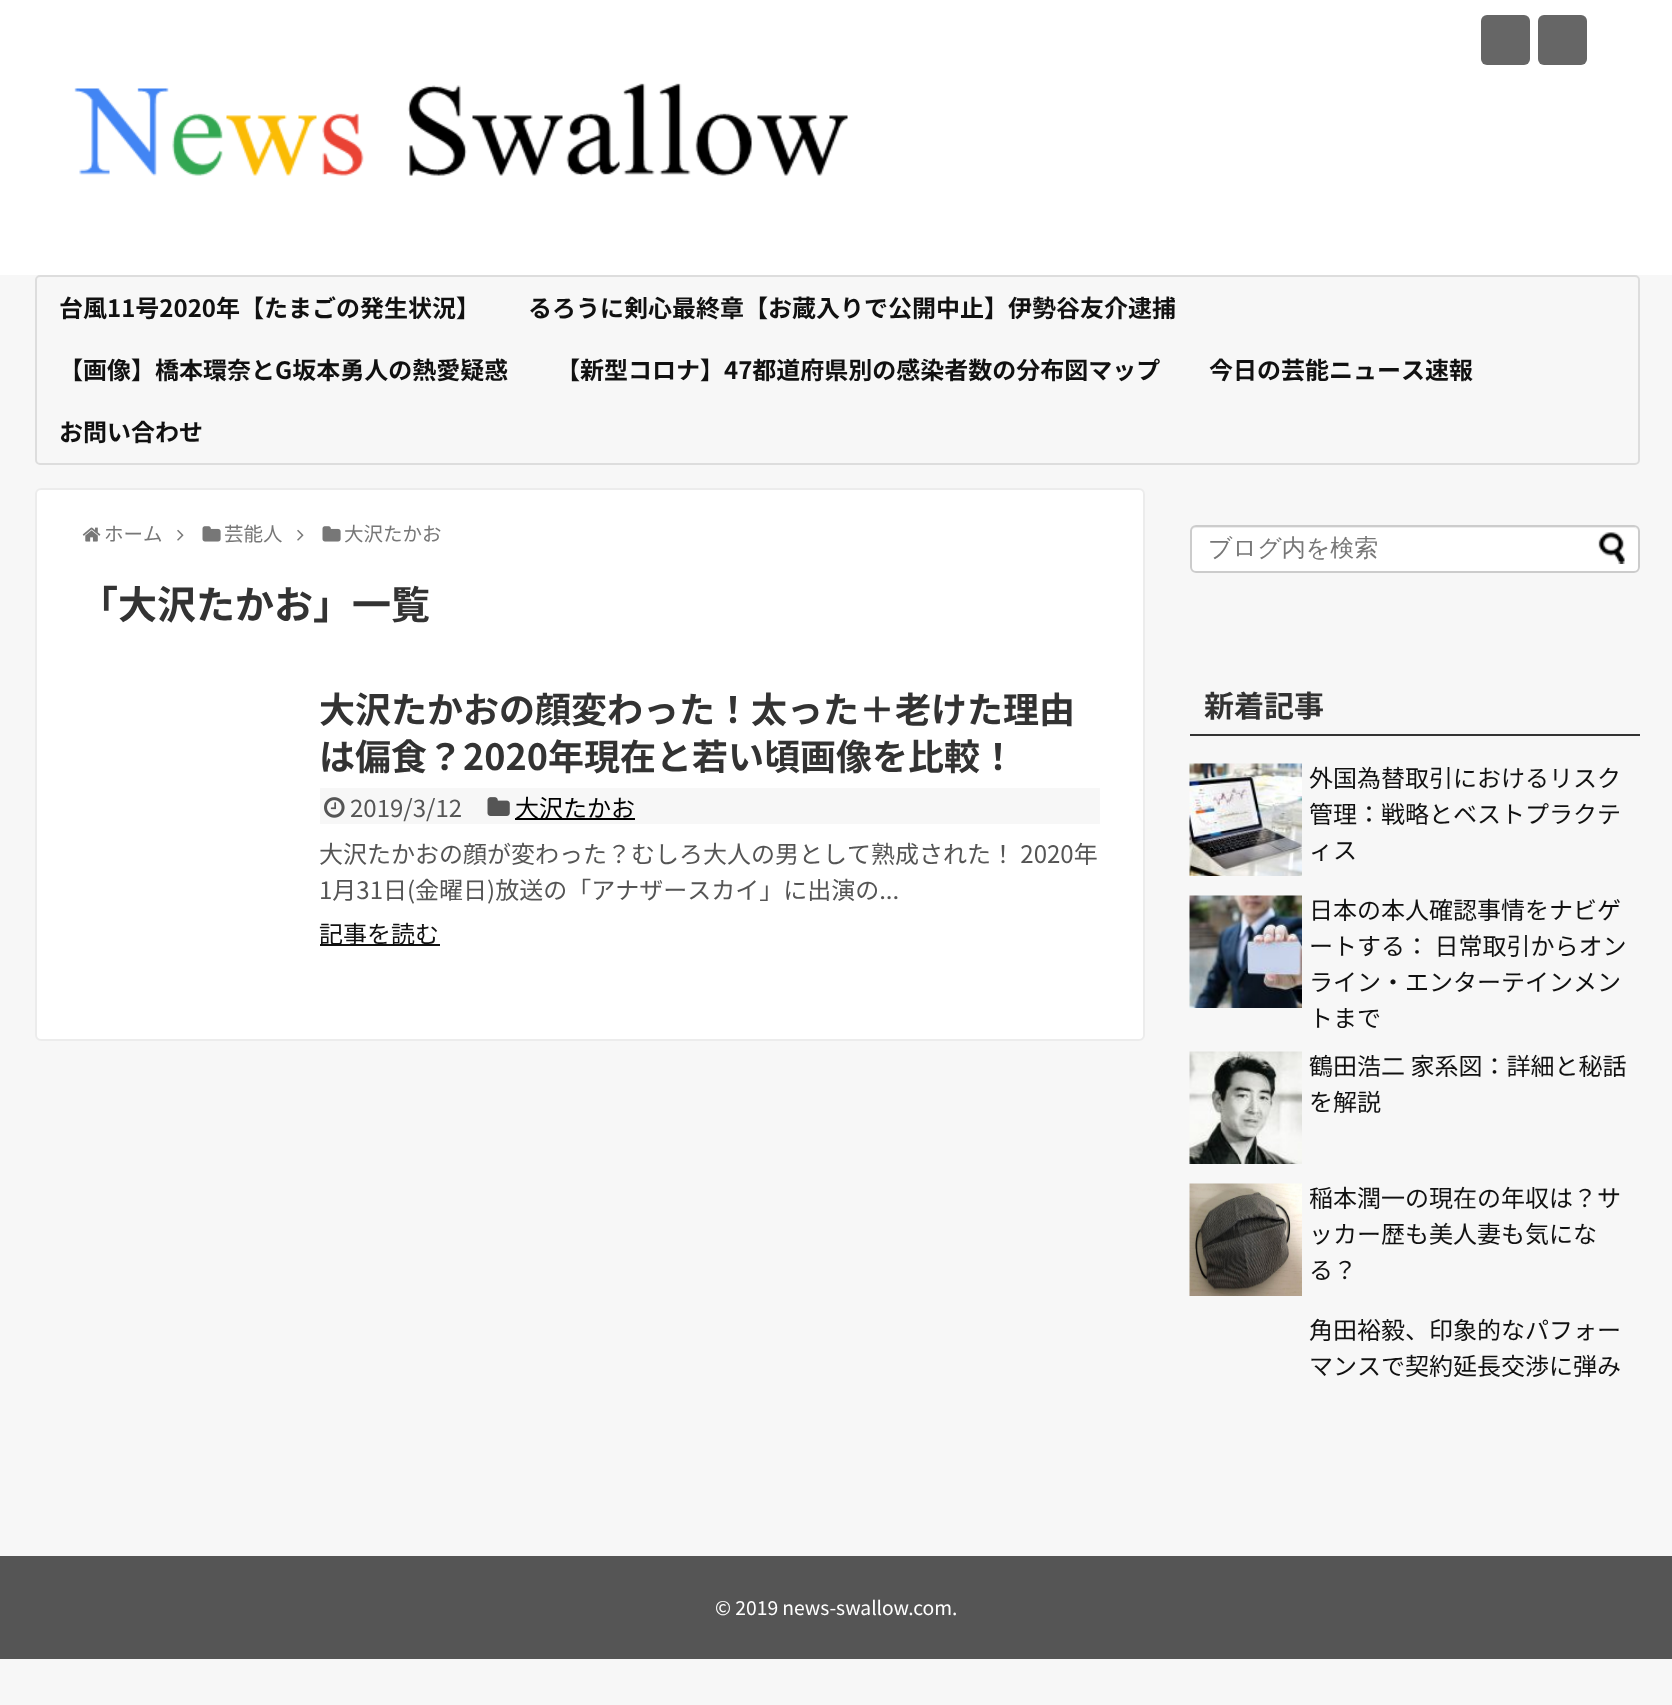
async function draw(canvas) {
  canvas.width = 1672;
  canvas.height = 1705;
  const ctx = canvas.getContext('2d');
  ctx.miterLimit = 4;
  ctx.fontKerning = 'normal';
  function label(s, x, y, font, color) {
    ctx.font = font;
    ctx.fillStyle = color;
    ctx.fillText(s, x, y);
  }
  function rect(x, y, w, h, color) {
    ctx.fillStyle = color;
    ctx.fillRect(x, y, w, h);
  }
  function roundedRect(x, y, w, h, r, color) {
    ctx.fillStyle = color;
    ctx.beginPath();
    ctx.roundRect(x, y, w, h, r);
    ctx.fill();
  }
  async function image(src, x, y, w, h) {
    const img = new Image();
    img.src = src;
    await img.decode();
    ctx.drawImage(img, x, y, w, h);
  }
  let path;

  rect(0, 0, 1672, 1705, '#f7f7f7');
  rect(0, 0, 1672, 275, '#fff');
  roundedRect(1481, 15, 49, 50, 6, '#666');
  roundedRect(1538, 15, 49, 50, 6, '#666');
  await image('assets/img1.png', 74, 83, 774, 93);
  ctx.beginPath();
  ctx.roundRect(36, 276, 1603, 188, 4);
  ctx.strokeStyle = '#ddd';
  ctx.lineWidth = 2;
  ctx.stroke();
  label('台風11号2020年【たまごの発生状況】', 59, 317, 'bold 24px Noto Sans JP', '#111');
  label('るろうに剣心最終章【お蔵入りで公開中止】伊勢谷友介逮捕', 528, 317, 'bold 24px Noto Sans JP', '#111');
  label('【画像】橋本環奈とG坂本勇人の熱愛疑惑', 59, 379, 'bold 24px Noto Sans JP', '#111');
  label('【新型コロナ】47都道府県別の感染者数の分布図マップ', 556, 379, 'bold 24px Noto Sans JP', '#111');
  label('今日の芸能ニュース速報', 1209, 379, 'bold 24px Noto Sans JP', '#111');
  label('お問い合わせ', 59, 441, 'bold 24px Noto Sans JP', '#111');
  ctx.fillStyle = '#fff';
  ctx.beginPath();
  ctx.roundRect(36, 489, 1108, 551, 5);
  ctx.fill();
  ctx.strokeStyle = '#ececec';
  ctx.stroke();
  await image('assets/img2.png', 82, 527, 19, 15);
  label('ホーム', 104, 541, '19.5px Noto Sans JP', '#777');
  await image('assets/img3.png', 177, 529, 7, 12);
  await image('assets/img4.png', 202, 526, 19, 16);
  label('芸能人', 224, 541, '19.5px Noto Sans JP', '#777');
  await image('assets/img3.png', 297, 529, 7, 12);
  await image('assets/img4.png', 322, 526, 19, 16);
  label('大沢たかお', 344, 541, '19.5px Noto Sans JP', '#777');
  label('「大沢たかお」一覧', 79, 619, 'bold 39px Noto Sans JP', '#333');
  label('大沢たかおの顔変わった！太った＋老けた理由', 319, 723, 'bold 36px Noto Sans JP', '#333');
  label('は偏食？2020年現在と若い頃画像を比較！', 319, 770, 'bold 36px Noto Sans JP', '#333');
  rect(320, 788, 780, 36, '#f7f7f7');
  await image('assets/img5.png', 324, 797, 21, 21);
  label('2019/3/12', 350, 817, '24px Noto Sans JP', '#555');
  await image('assets/img6.png', 487, 797, 23, 19);
  rect(515, 818, 120, 2, '#000');
  label('大沢たかお', 515, 817, '24px Noto Sans JP', '#000');
  label('大沢たかおの顔が変わった？むしろ大人の男として熟成された！ 2020年', 319, 863, '24px Noto Sans JP', '#555');
  label('1月31日(金曜日)放送の「アナザースカイ」に出演の...', 319, 899, '24px Noto Sans JP', '#555');
  rect(320, 944, 120, 2, '#111');
  label('記事を読む', 319, 943, '24px Noto Sans JP', '#111');
  roundedRect(1190, 525, 450, 48, 6, '#fff');
  ctx.fillStyle = '#ececec';
  path = new Path2D('M1196 528H1634C1636 528 1638 530 1638 532C1638 529 1636 527 1633 527H1196C1193 527 1191 529 1191 532C1191 530 1193 528 1196 528Z');
  ctx.fill(path);
  ctx.beginPath();
  ctx.roundRect(1191, 526, 448, 46, 5);
  ctx.strokeStyle = '#ccc';
  ctx.stroke();
  label('ブログ内を検索', 1208, 556, '500 24px WenQuanYi Zen Hei', '#777');
  await image('assets/img7.png', 1598, 532, 27, 32);
  rect(1190, 734, 450, 2, '#333');
  label('新着記事', 1204, 717, 'bold 30px Noto Sans JP', '#333');
  await image('assets/img8.png', 1189, 763, 113, 113);
  label('外国為替取引におけるリスク', 1309, 787, '24px Noto Sans JP', '#111');
  label('管理：戦略とベストプラクテ', 1309, 823, '24px Noto Sans JP', '#111');
  label('ィス', 1309, 859, '24px Noto Sans JP', '#111');
  await image('assets/img9.png', 1189, 895, 113, 113);
  label('日本の本人確認事情をナビゲ', 1309, 919, '24px Noto Sans JP', '#111');
  label('ートする： 日常取引からオン', 1309, 955, '24px Noto Sans JP', '#111');
  label('ライン・エンターテインメン', 1309, 991, '24px Noto Sans JP', '#111');
  label('トまで', 1309, 1027, '24px Noto Sans JP', '#111');
  await image('assets/img10.png', 1189, 1051, 113, 113);
  label('鶴田浩二 家系図：詳細と秘話', 1309, 1075, '24px Noto Sans JP', '#111');
  label('を解説', 1309, 1111, '24px Noto Sans JP', '#111');
  await image('assets/img11.png', 1189, 1183, 113, 113);
  label('稲本潤一の現在の年収は？サ', 1309, 1207, '24px Noto Sans JP', '#111');
  label('ッカー歴も美人妻も気にな', 1309, 1243, '24px Noto Sans JP', '#111');
  label('る？', 1309, 1279, '24px Noto Sans JP', '#111');
  label('角田裕毅、印象的なパフォー', 1309, 1339, '24px Noto Sans JP', '#111');
  label('マンスで契約延長交渉に弾み', 1309, 1375, '24px Noto Sans JP', '#111');
  rect(0, 1556, 1672, 103, '#555');
  label('© 2019 news-swallow.com.', 715, 1615, '19.25px Noto Sans JP', '#fff');
}

draw(document.querySelector('canvas'));
